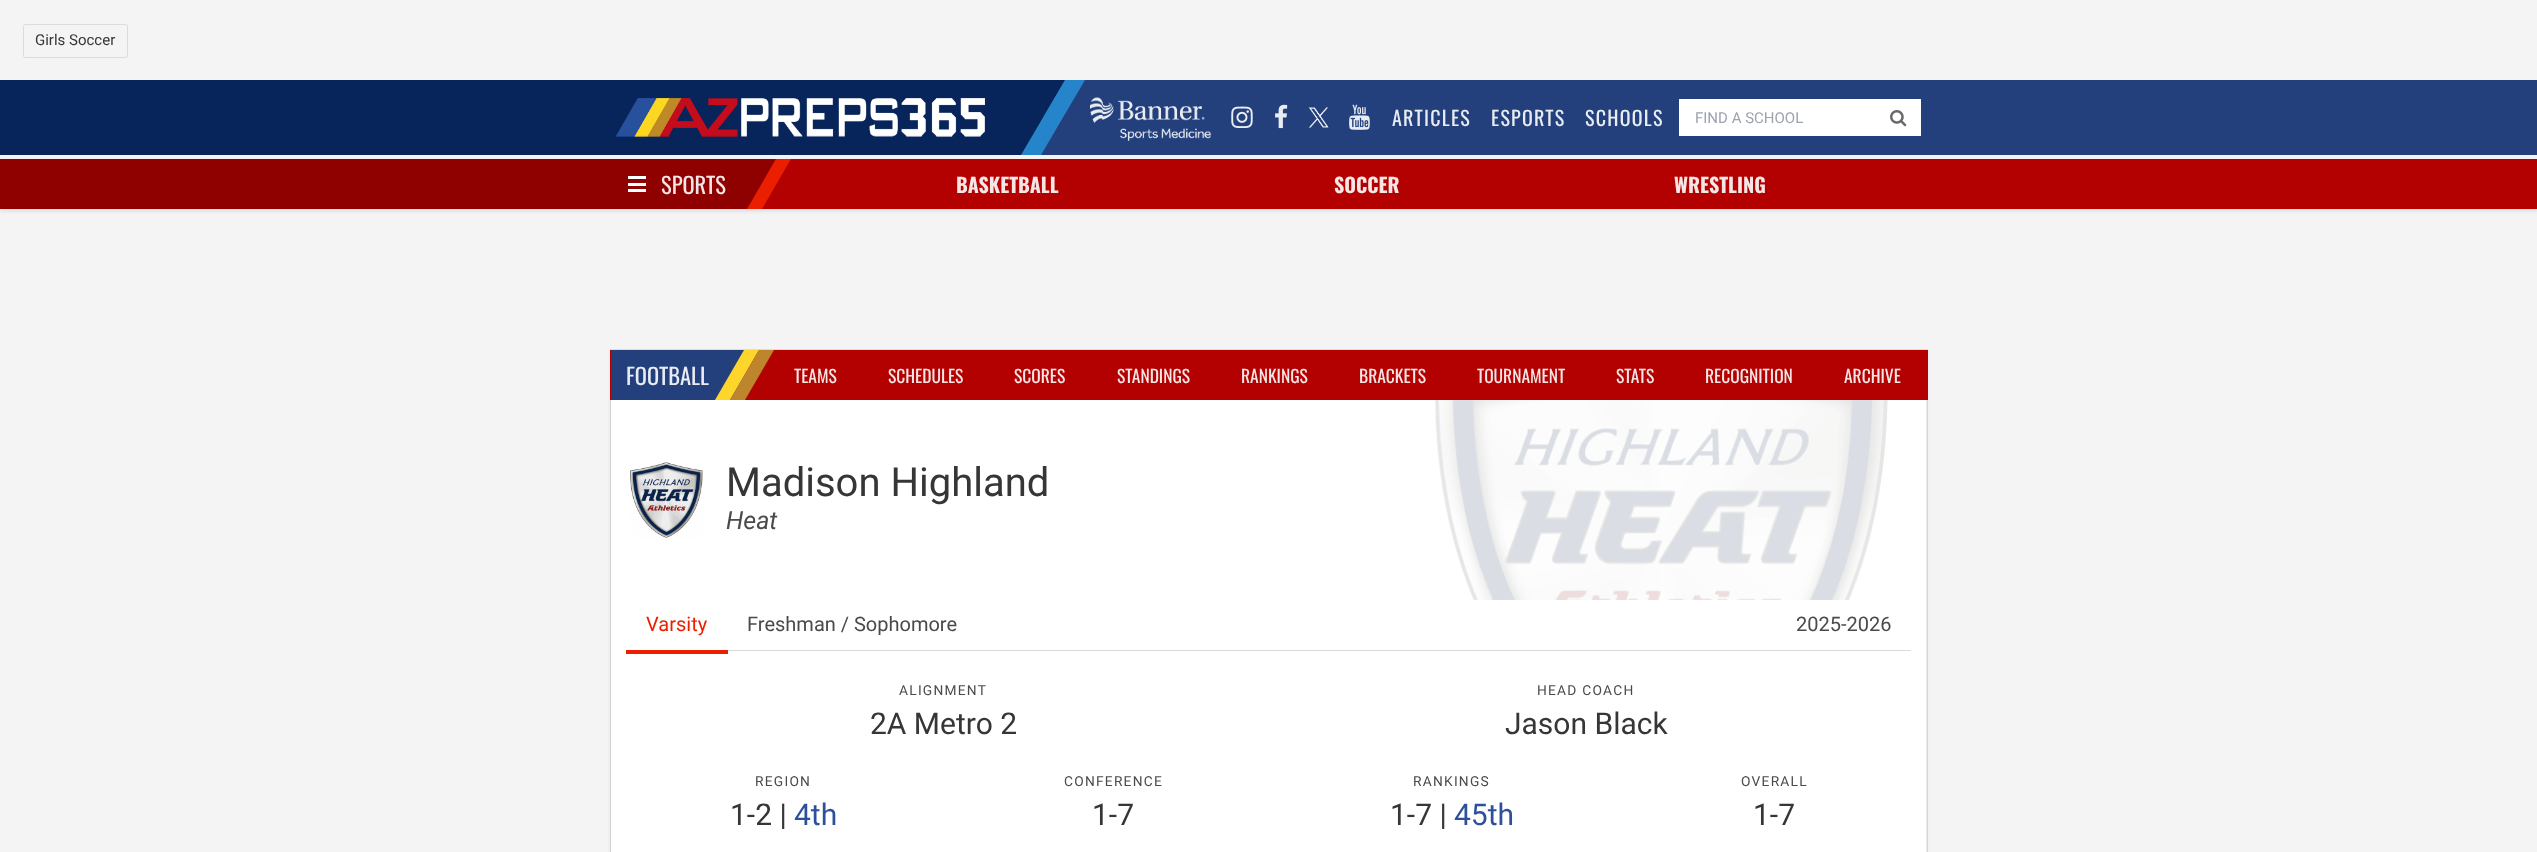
async function draw(canvas) {
  canvas.width = 2537;
  canvas.height = 852;
  const ctx = canvas.getContext('2d');
  ctx.miterLimit = 4;
  ctx.fontKerning = 'normal';
  function label(s, x, y, font, color) {
    ctx.font = font;
    ctx.fillStyle = color;
    ctx.fillText(s, x, y);
  }
  function rect(x, y, w, h, color) {
    ctx.fillStyle = color;
    ctx.fillRect(x, y, w, h);
  }
  async function image(src, x, y, w, h) {
    const img = new Image();
    img.src = src;
    await img.decode();
    ctx.drawImage(img, x, y, w, h);
  }
  let path;

  rect(0, 0, 2537, 852, '#f4f4f4');
  ctx.beginPath();
  ctx.roundRect(23.5, 24.5, 104, 33, 2);
  ctx.strokeStyle = '#dbdbdb';
  ctx.stroke();
  label('Girls Soccer', 35, 45, '15px Roboto', '#363636');
  ctx.fillStyle = '#0a0a0a1a';
  ctx.filter = 'blur(2px)';
  ctx.beginPath();
  ctx.rect(0, 161, 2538, 50);
  ctx.fill();
  ctx.filter = 'none';
  rect(1041, 80, 1496, 75, '#23407c');
  rect(0, 80, 1041, 75, '#07245b');
  await image('assets/img1.png', 615, 98, 370, 39);
  path = new Path2D('M1040 80H1065L1021 155H996Z');
  ctx.fill(path);
  ctx.fillStyle = '#2684cb';
  path = new Path2D('M1065 80H1085L1041 155H1021Z');
  ctx.fill(path);
  await image('assets/img2.png', 1090, 97, 122, 44);
  await image('assets/img3.png', 1231, 106, 22, 22);
  await image('assets/img4.png', 1275, 104, 13, 25);
  await image('assets/img5.png', 1308, 107, 21, 21);
  await image('assets/img6.png', 1349, 104, 21, 26);
  ctx.letterSpacing = '1.25px';
  label('ARTICLES', 1392, 126, '20px Oswald', '#e9ecf2');
  label('ESPORTS', 1491, 126, '20px Oswald', '#e9ecf2');
  label('SCHOOLS', 1585, 126, '20px Oswald', '#e9ecf2');
  rect(1679, 99, 242, 37, '#fff');
  ctx.letterSpacing = '0px';
  label('FIND A SCHOOL', 1695, 123, '15px Roboto', '#9ca3af');
  await image('assets/img7.png', 1890, 110, 17, 17);
  rect(761, 159, 1776, 50, '#b30000');
  rect(0, 159, 761, 50, '#8f0000');
  rect(628, 176, 18, 3, '#fff');
  rect(628, 183, 18, 3, '#fff');
  rect(628, 189, 18, 3, '#fff');
  label('SPORTS', 661, 194, '22.5px Oswald', '#f7e6e6');
  ctx.fillStyle = '#8f0000';
  path = new Path2D('M761 159H776L747 209H732Z');
  ctx.fill(path);
  ctx.fillStyle = '#eb1e00';
  path = new Path2D('M776 159H791L762 209H747Z');
  ctx.fill(path);
  label('BASKETBALL', 956, 193, 'bold 20px Oswald', '#f7e6e6');
  label('SOCCER', 1334, 193, 'bold 20px Oswald', '#f7e6e6');
  label('WRESTLING', 1674, 193, 'bold 20px Oswald', '#f7e6e6');
  ctx.strokeStyle = '#ddd';
  ctx.strokeRect(610.5, 349.5, 1317, 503);
  ctx.fillStyle = '#0a0a0a1a';
  ctx.filter = 'blur(2px)';
  ctx.beginPath();
  ctx.rect(611, 353, 1315, 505);
  ctx.fill();
  ctx.filter = 'none';
  rect(611, 400, 1315, 452, '#fff');
  rect(610, 350, 1318, 50, '#b30000');
  rect(611, 350, 133, 50, '#23407c');
  label('FOOTBALL', 626, 385, '22.5px Oswald', '#e9ecf2');
  ctx.fillStyle = '#fdd52b';
  path = new Path2D('M744 350H759L730 400H715Z');
  ctx.fill(path);
  ctx.fillStyle = '#be862c';
  path = new Path2D('M759 350H774L745 400H730Z');
  ctx.fill(path);
  label('TEAMS', 794, 383, '17.5px Oswald', '#f7e6e6');
  label('SCHEDULES', 888, 383, '17.5px Oswald', '#f7e6e6');
  label('SCORES', 1014, 383, '17.5px Oswald', '#f7e6e6');
  label('STANDINGS', 1117, 383, '17.5px Oswald', '#f7e6e6');
  label('RANKINGS', 1241, 383, '17.5px Oswald', '#f7e6e6');
  label('BRACKETS', 1359, 383, '17.5px Oswald', '#f7e6e6');
  label('TOURNAMENT', 1477, 383, '17.5px Oswald', '#f7e6e6');
  label('STATS', 1616, 383, '17.5px Oswald', '#f7e6e6');
  label('RECOGNITION', 1705, 383, '17.5px Oswald', '#f7e6e6');
  label('ARCHIVE', 1844, 383, '17.5px Oswald', '#f7e6e6');
  await image('assets/img8.png', 630, 462, 73, 76);
  label('Madison Highland', 726, 496, '40px Roboto', '#363636');
  label('Heat', 726, 529, 'italic 25px Roboto', '#4a4a4a');
  await image('assets/img9.png', 1435, 400, 453, 200);
  rect(728, 650, 1183, 1, '#dadada');
  rect(626, 650, 102, 4, '#eb1e00');
  label('Varsity', 646, 631, '20px Roboto', '#eb1e00');
  label('Freshman / Sophomore', 747, 631, '20px Roboto', '#4a4a4a');
  label('2025-2026', 1796, 631, '20px Roboto', '#4a4a4a');
  ctx.letterSpacing = '1.25px';
  label('ALIGNMENT', 899, 695, '13.75px Roboto', '#4a4a4a');
  ctx.letterSpacing = '0px';
  label('2A Metro 2', 870, 734, '30px Roboto', '#363636');
  ctx.letterSpacing = '1.25px';
  label('HEAD COACH', 1537, 695, '13.75px Roboto', '#4a4a4a');
  ctx.letterSpacing = '0px';
  label('Jason Black', 1505, 734, '30px Roboto', '#363636');
  ctx.letterSpacing = '1.25px';
  label('REGION', 755, 786, '13.75px Roboto', '#4a4a4a');
  ctx.letterSpacing = '0px';
  label('1-2 |', 730, 825, '30px Roboto', '#363636');
  label('4th', 794, 825, '30px Roboto', '#2e509b');
  ctx.letterSpacing = '1.25px';
  label('CONFERENCE', 1064, 786, '13.75px Roboto', '#4a4a4a');
  ctx.letterSpacing = '0px';
  label('1-7', 1092, 825, '30px Roboto', '#363636');
  ctx.letterSpacing = '1.25px';
  label('RANKINGS', 1413, 786, '13.75px Roboto', '#4a4a4a');
  ctx.letterSpacing = '0px';
  label('1-7 |', 1390, 825, '30px Roboto', '#363636');
  label('45th', 1454, 825, '30px Roboto', '#2e509b');
  ctx.letterSpacing = '1.25px';
  label('OVERALL', 1741, 786, '13.75px Roboto', '#4a4a4a');
  ctx.letterSpacing = '0px';
  label('1-7', 1753, 825, '30px Roboto', '#363636');
}

draw(document.querySelector('canvas'));
